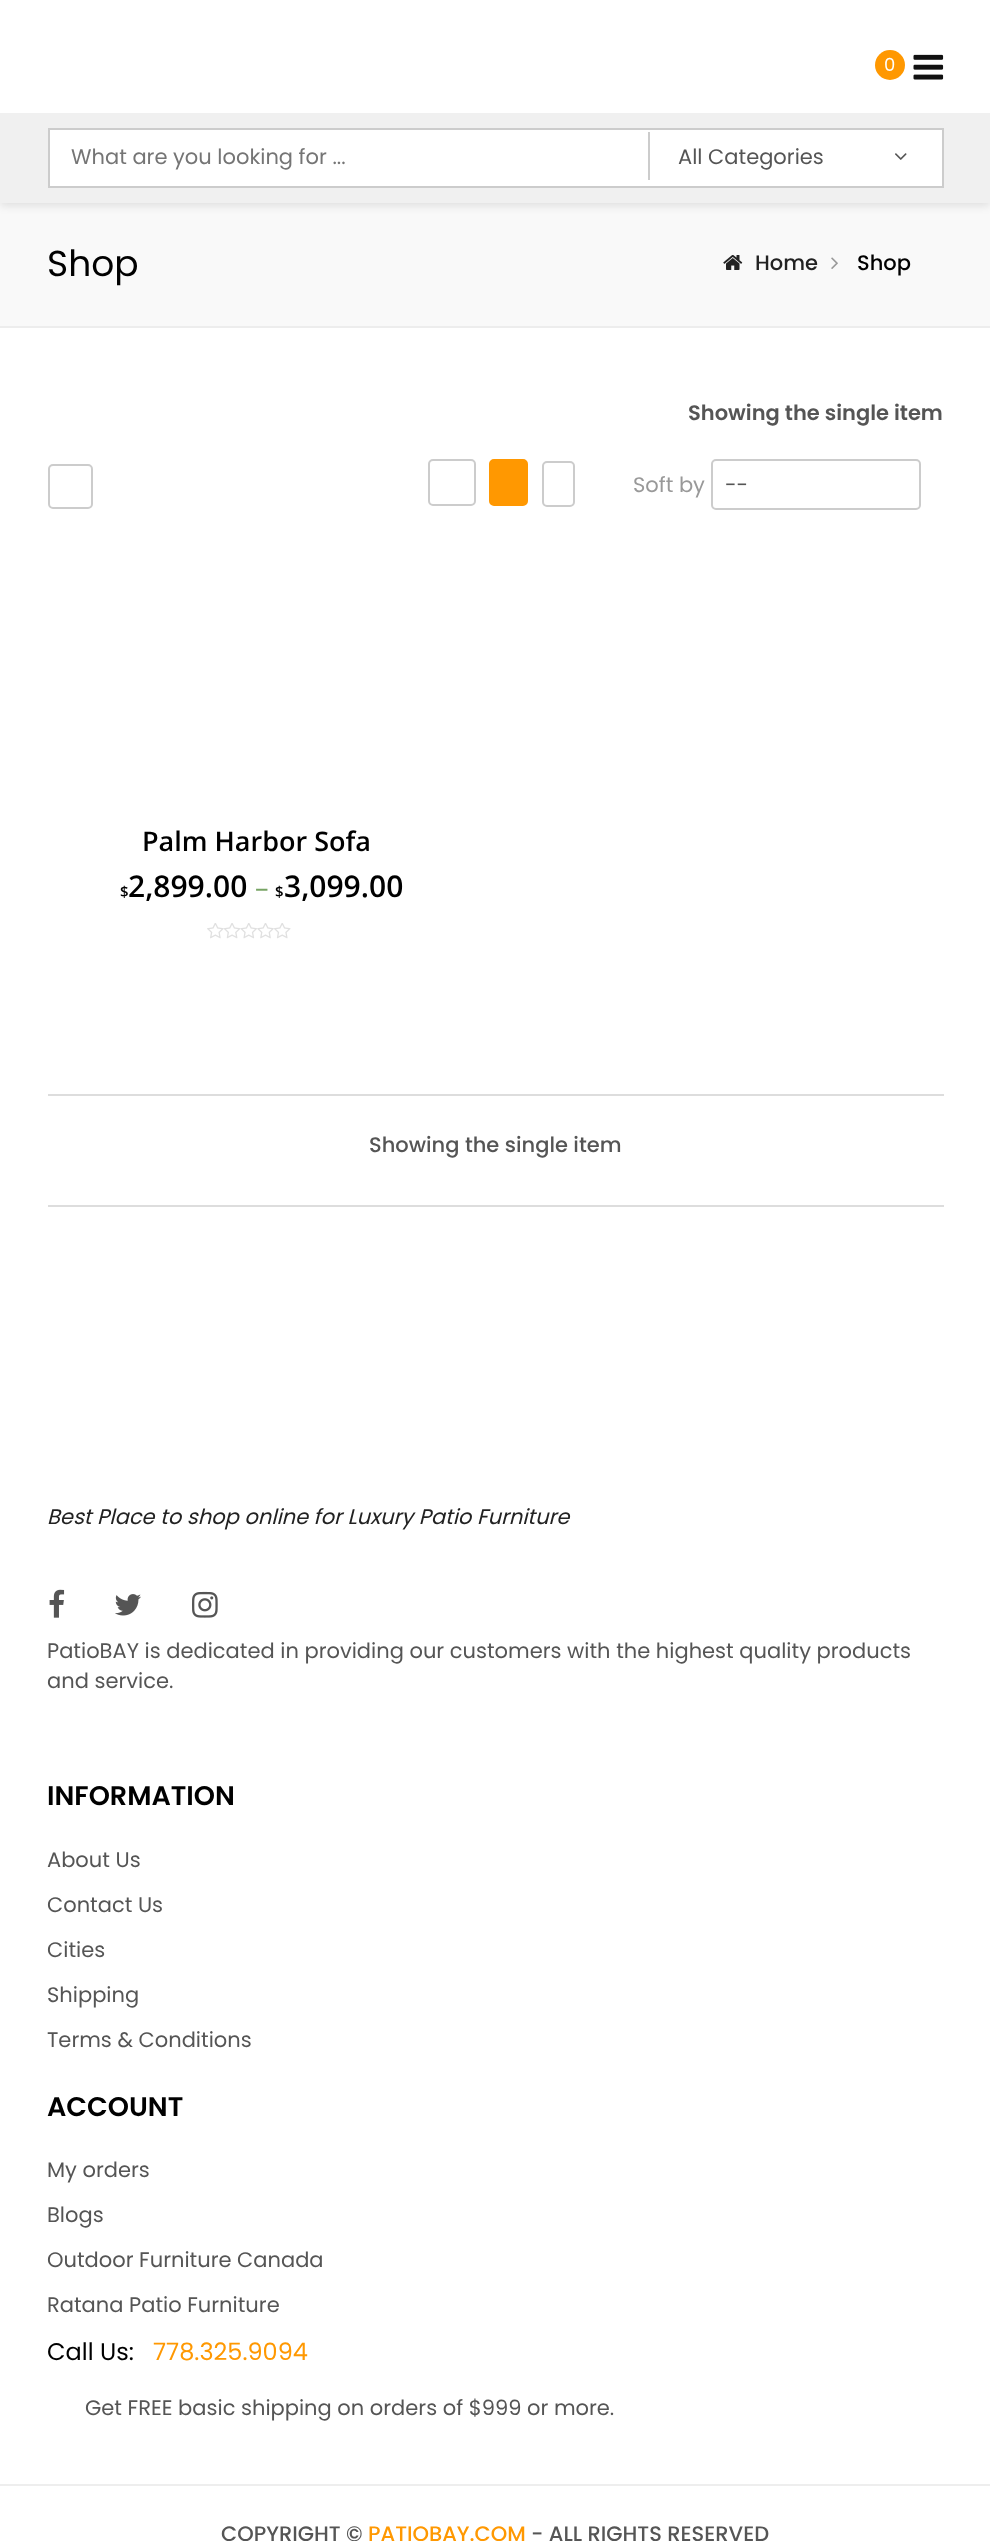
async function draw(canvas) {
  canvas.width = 990;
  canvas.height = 2541;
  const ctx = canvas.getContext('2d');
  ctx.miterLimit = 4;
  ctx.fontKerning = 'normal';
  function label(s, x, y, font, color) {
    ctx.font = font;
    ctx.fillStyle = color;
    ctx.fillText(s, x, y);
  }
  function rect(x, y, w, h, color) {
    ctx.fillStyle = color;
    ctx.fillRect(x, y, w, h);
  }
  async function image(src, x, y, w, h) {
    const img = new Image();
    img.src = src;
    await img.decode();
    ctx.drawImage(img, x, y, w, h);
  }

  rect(0, 0, 990, 2541, '#fff');
  rect(0, 203, 990, 123, '#f9f9f9');
  ctx.fillStyle = '#0000001a';
  ctx.filter = 'blur(4px)';
  ctx.beginPath();
  ctx.rect(0, 3, 990, 203);
  ctx.fill();
  ctx.filter = 'none';
  rect(0, 0, 990, 113, '#fff');
  ctx.fillStyle = '#ff9801';
  ctx.beginPath();
  ctx.arc(890, 65, 15, 0, 2 * Math.PI);
  ctx.fill();
  label('0', 884, 71, '18px Poppins', '#fff');
  await image('assets/img1.png', 913, 54, 31, 26);
  rect(0, 113, 990, 90, '#f0f0f0');
  ctx.fillStyle = '#fff';
  ctx.beginPath();
  ctx.rect(49, 129, 894, 58);
  ctx.fill();
  ctx.strokeStyle = '#ccc';
  ctx.lineWidth = 2;
  ctx.stroke();
  label('What are you looking for ...', 71, 164, '21px Poppins', '#757575');
  rect(648, 132, 2, 48, '#ccc');
  label('All Categories', 678, 164, '21px Poppins', '#555');
  await image('assets/img2.png', 895, 153, 12, 7);
  rect(0, 326, 990, 2, '#ededed');
  label('Shop', 47, 276, '36px Poppins', '#000');
  await image('assets/img3.png', 723, 255, 20, 15);
  label('Home', 755, 270, '500 21px Poppins', '#222');
  await image('assets/img4.png', 831, 257, 7, 12);
  label('Shop', 857, 270, '500 21px Poppins', '#000');
  label('Showing the single item', 688, 420, '600 21px Poppins', '#555');
  ctx.beginPath();
  ctx.roundRect(49, 465, 43, 43, 4);
  ctx.stroke();
  ctx.beginPath();
  ctx.roundRect(429, 460, 46, 45, 4);
  ctx.stroke();
  ctx.fillStyle = '#ff9801';
  ctx.beginPath();
  ctx.roundRect(490, 460, 37, 45, 4);
  ctx.fill();
  ctx.strokeStyle = '#ff9801';
  ctx.stroke();
  ctx.beginPath();
  ctx.roundRect(543, 462, 31, 44, 4);
  ctx.strokeStyle = '#ccc';
  ctx.stroke();
  label('Soft by', 633, 492, '21px Poppins', '#999');
  ctx.beginPath();
  ctx.roundRect(712, 460, 208, 49, 4);
  ctx.stroke();
  label('--', 725, 492, '21px Poppins', '#555');
  label('Palm Harbor Sofa', 142, 851, '600 27px Open Sans', '#000');
  label('$', 120, 897, '600 15px Open Sans', '#000');
  label('2,899.00', 128, 897, '600 30px Open Sans', '#000');
  label('–', 255, 897, '27px Open Sans', '#77a464');
  label('$', 275, 897, '600 15px Open Sans', '#000');
  label('3,099.00', 284, 897, '600 30px Open Sans', '#000');
  await image('assets/img5.png', 207, 923, 84, 16);
  rect(48, 1094, 896, 2, '#ddd');
  rect(48, 1205, 896, 2, '#ddd');
  label('Showing the single item', 369, 1152, '500 21px Poppins', '#555');
  label('Best Place to shop online for Luxury Patio Furniture', 47, 1524, 'italic 21px Poppins', '#222');
  await image('assets/img6.png', 49, 1589, 16, 29);
  await image('assets/img7.png', 115, 1594, 26, 22);
  await image('assets/img8.png', 192, 1591, 26, 27);
  label('PatioBAY is dedicated in providing our customers with the highest quality products', 47, 1658, '21px Poppins', '#555');
  label('and service.', 47, 1688, '21px Poppins', '#555');
  label('INFORMATION', 47, 1805, '600 27px Poppins', '#000');
  label('About Us', 47, 1867, '21px Poppins', '#555');
  label('Contact Us', 47, 1912, '21px Poppins', '#555');
  label('Cities', 47, 1957, '21px Poppins', '#555');
  label('Shipping', 47, 2002, '21px Poppins', '#555');
  label('Terms & Conditions', 47, 2047, '21px Poppins', '#555');
  label('ACCOUNT', 47, 2116, '600 27px Poppins', '#000');
  label('My orders', 47, 2177, '21px Poppins', '#555');
  label('Blogs', 47, 2222, '21px Poppins', '#555');
  label('Outdoor Furniture Canada', 47, 2267, '21px Poppins', '#555');
  label('Ratana Patio Furniture', 47, 2312, '21px Poppins', '#555');
  label('Call Us:', 47, 2360, '24px Poppins', '#000');
  label('778.325.9094', 153, 2360, '24px Poppins', '#ff9801');
  label('Get FREE basic shipping on orders of $999 or more.', 85, 2415, '21px Poppins', '#555');
  rect(0, 2484, 990, 2, '#eee');
  label('COPYRIGHT ©', 221, 2541, '500 21px Poppins', '#555');
  label('PATIOBAY.COM', 368, 2541, '500 21px Poppins', '#ff9801');
  label('- ALL RIGHTS RESERVED', 531, 2541, '500 21px Poppins', '#555');
}

draw(document.querySelector('canvas'));
